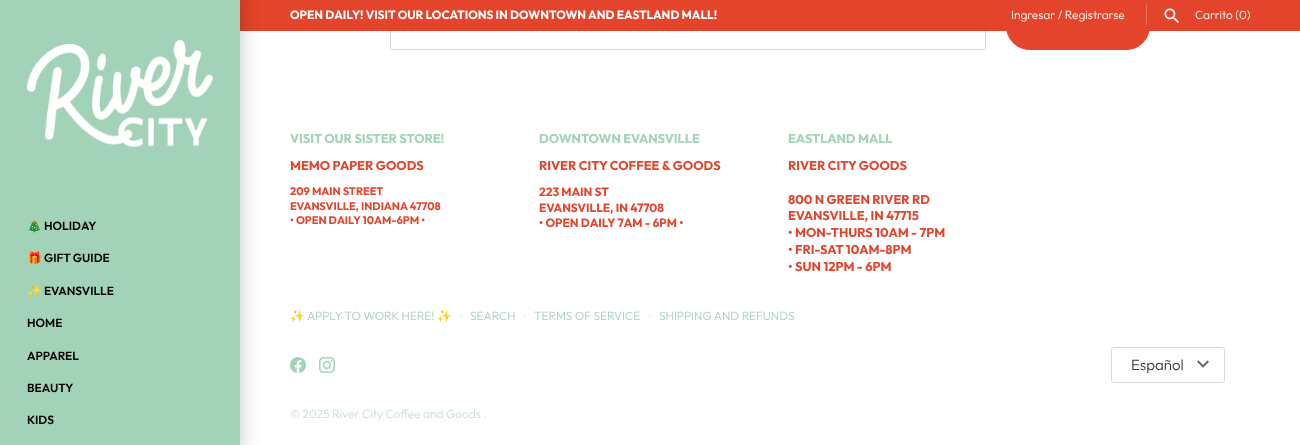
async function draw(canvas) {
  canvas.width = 1300;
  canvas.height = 445;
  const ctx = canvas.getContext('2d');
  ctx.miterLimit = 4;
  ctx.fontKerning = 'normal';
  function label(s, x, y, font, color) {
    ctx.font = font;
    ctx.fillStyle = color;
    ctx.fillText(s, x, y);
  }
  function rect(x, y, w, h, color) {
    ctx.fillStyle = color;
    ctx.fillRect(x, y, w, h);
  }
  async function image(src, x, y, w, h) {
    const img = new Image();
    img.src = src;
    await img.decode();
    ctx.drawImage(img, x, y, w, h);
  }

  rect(0, 0, 1300, 445, '#fff');
  ctx.beginPath();
  ctx.roundRect(390.5, 3.5, 595, 46, 2.5);
  ctx.strokeStyle = '#d9d9d9';
  ctx.stroke();
  ctx.fillStyle = '#e3442b';
  ctx.beginPath();
  ctx.roundRect(1006.5, 3.5, 143, 46, 23);
  ctx.fill();
  ctx.strokeStyle = '#e3442b';
  ctx.stroke();
  rect(240, 0, 1060, 31, '#e3442b');
  label('OPEN DAILY! VISIT OUR LOCATIONS IN DOWNTOWN AND EASTLAND MALL!', 290, 19, 'bold 11.9px Outfit', '#fff');
  label('Ingresar / Registrarse', 1011, 19, '300 11.9px Outfit', '#fff');
  rect(1146, 4, 1, 21, '#ea7360');
  await image('assets/img1.png', 1164, 8, 15, 15);
  label('Carrito (0)', 1195, 19, '300 11.9px Outfit', '#fff');
  ctx.fillStyle = '#00000026';
  ctx.filter = 'blur(7.5px)';
  ctx.beginPath();
  ctx.rect(-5, -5, 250, 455);
  ctx.fill();
  ctx.filter = 'none';
  rect(0, 0, 240, 445, '#a2d2b8');
  await image('assets/img2.png', 27, 39, 186, 109);
  label('🎄', 27, 230, 'bold 11.9px Noto Color Emoji', '#000');
  label('HOLIDAY', 44, 230, '600 11.9px Outfit', '#000');
  label('🎁', 27, 262, 'bold 11.9px Noto Color Emoji', '#000');
  label('GIFT GUIDE', 44, 262, '600 11.9px Outfit', '#000');
  label('✨', 27, 295, 'bold 11.9px Noto Color Emoji', '#000');
  label('EVANSVILLE', 44, 295, '600 11.9px Outfit', '#000');
  label('HOME', 27, 327, '600 11.9px Outfit', '#000');
  label('APPAREL', 27, 360, '600 11.9px Outfit', '#000');
  label('BEAUTY', 27, 392, '600 11.9px Outfit', '#000');
  label('KIDS', 27, 424, '600 11.9px Outfit', '#000');
  label('VISIT OUR SISTER STORE!', 290, 143, 'bold 12.8px Outfit', '#a2d2b8');
  label('MEMO PAPER GOODS', 290, 170, 'bold 12.8px Outfit', '#e3442b');
  label('209 MAIN STREET', 290, 195, 'bold 11px Outfit', '#e3442b');
  label('EVANSVILLE, INDIANA 47708', 290, 210, 'bold 11px Outfit', '#e3442b');
  label('• OPEN DAILY 10AM-6PM •', 290, 224, 'bold 11px Outfit', '#e3442b');
  label('DOWNTOWN EVANSVILLE', 539, 143, 'bold 12.8px Outfit', '#a2d2b8');
  label('RIVER CITY COFFEE & GOODS', 539, 170, 'bold 12.8px Outfit', '#e3442b');
  label('223 MAIN ST', 539, 196, 'bold 11.9px Outfit', '#e3442b');
  label('EVANSVILLE, IN 47708', 539, 212, 'bold 11.9px Outfit', '#e3442b');
  label('• OPEN DAILY 7AM - 6PM •', 539, 227, 'bold 11.9px Outfit', '#e3442b');
  label('EASTLAND MALL', 788, 143, 'bold 12.8px Outfit', '#a2d2b8');
  label('RIVER CITY GOODS', 788, 170, 'bold 12.8px Outfit', '#e3442b');
  label('800 N GREEN RIVER RD', 788, 204, 'bold 12.8px Outfit', '#e3442b');
  label('EVANSVILLE, IN 47715', 788, 220, 'bold 12.8px Outfit', '#e3442b');
  label('• MON-THURS 10AM - 7PM', 788, 237, 'bold 12.8px Outfit', '#e3442b');
  label('• FRI-SAT 10AM-8PM', 788, 254, 'bold 12.8px Outfit', '#e3442b');
  label('• SUN 12PM - 6PM', 788, 271, 'bold 12.8px Outfit', '#e3442b');
  label('✨', 290, 320, '11.9px Noto Color Emoji', '#a2d2b8');
  label('APPLY TO WORK HERE!', 307, 320, '300 11.9px Outfit', '#a2d2b8');
  label('✨', 437, 320, '11.9px Noto Color Emoji', '#a2d2b8');
  label('·', 460, 320, '300 11.9px Outfit', '#c3e2d1');
  label('SEARCH', 470, 320, '300 11.9px Outfit', '#a2d2b8');
  label('·', 524, 320, '300 11.9px Outfit', '#c3e2d1');
  label('TERMS OF SERVICE', 534, 320, '300 11.9px Outfit', '#a2d2b8');
  label('·', 649, 320, '300 11.9px Outfit', '#c3e2d1');
  label('SHIPPING AND REFUNDS', 659, 320, '300 11.9px Outfit', '#a2d2b8');
  await image('assets/img3.png', 290, 357, 16, 16);
  await image('assets/img4.png', 319, 357, 16, 16);
  ctx.beginPath();
  ctx.roundRect(1111.5, 347.5, 113, 35, 2.5);
  ctx.strokeStyle = '#d9d9d9';
  ctx.stroke();
  label('Español', 1131, 370, '300 15px Outfit', '#333');
  await image('assets/img5.png', 1197, 360, 12, 8);
  label('© 2025 River City Coffee and Goods .', 290, 418, '300 11.9px Outfit', '#c3e2d1');
}

draw(document.querySelector('canvas'));
